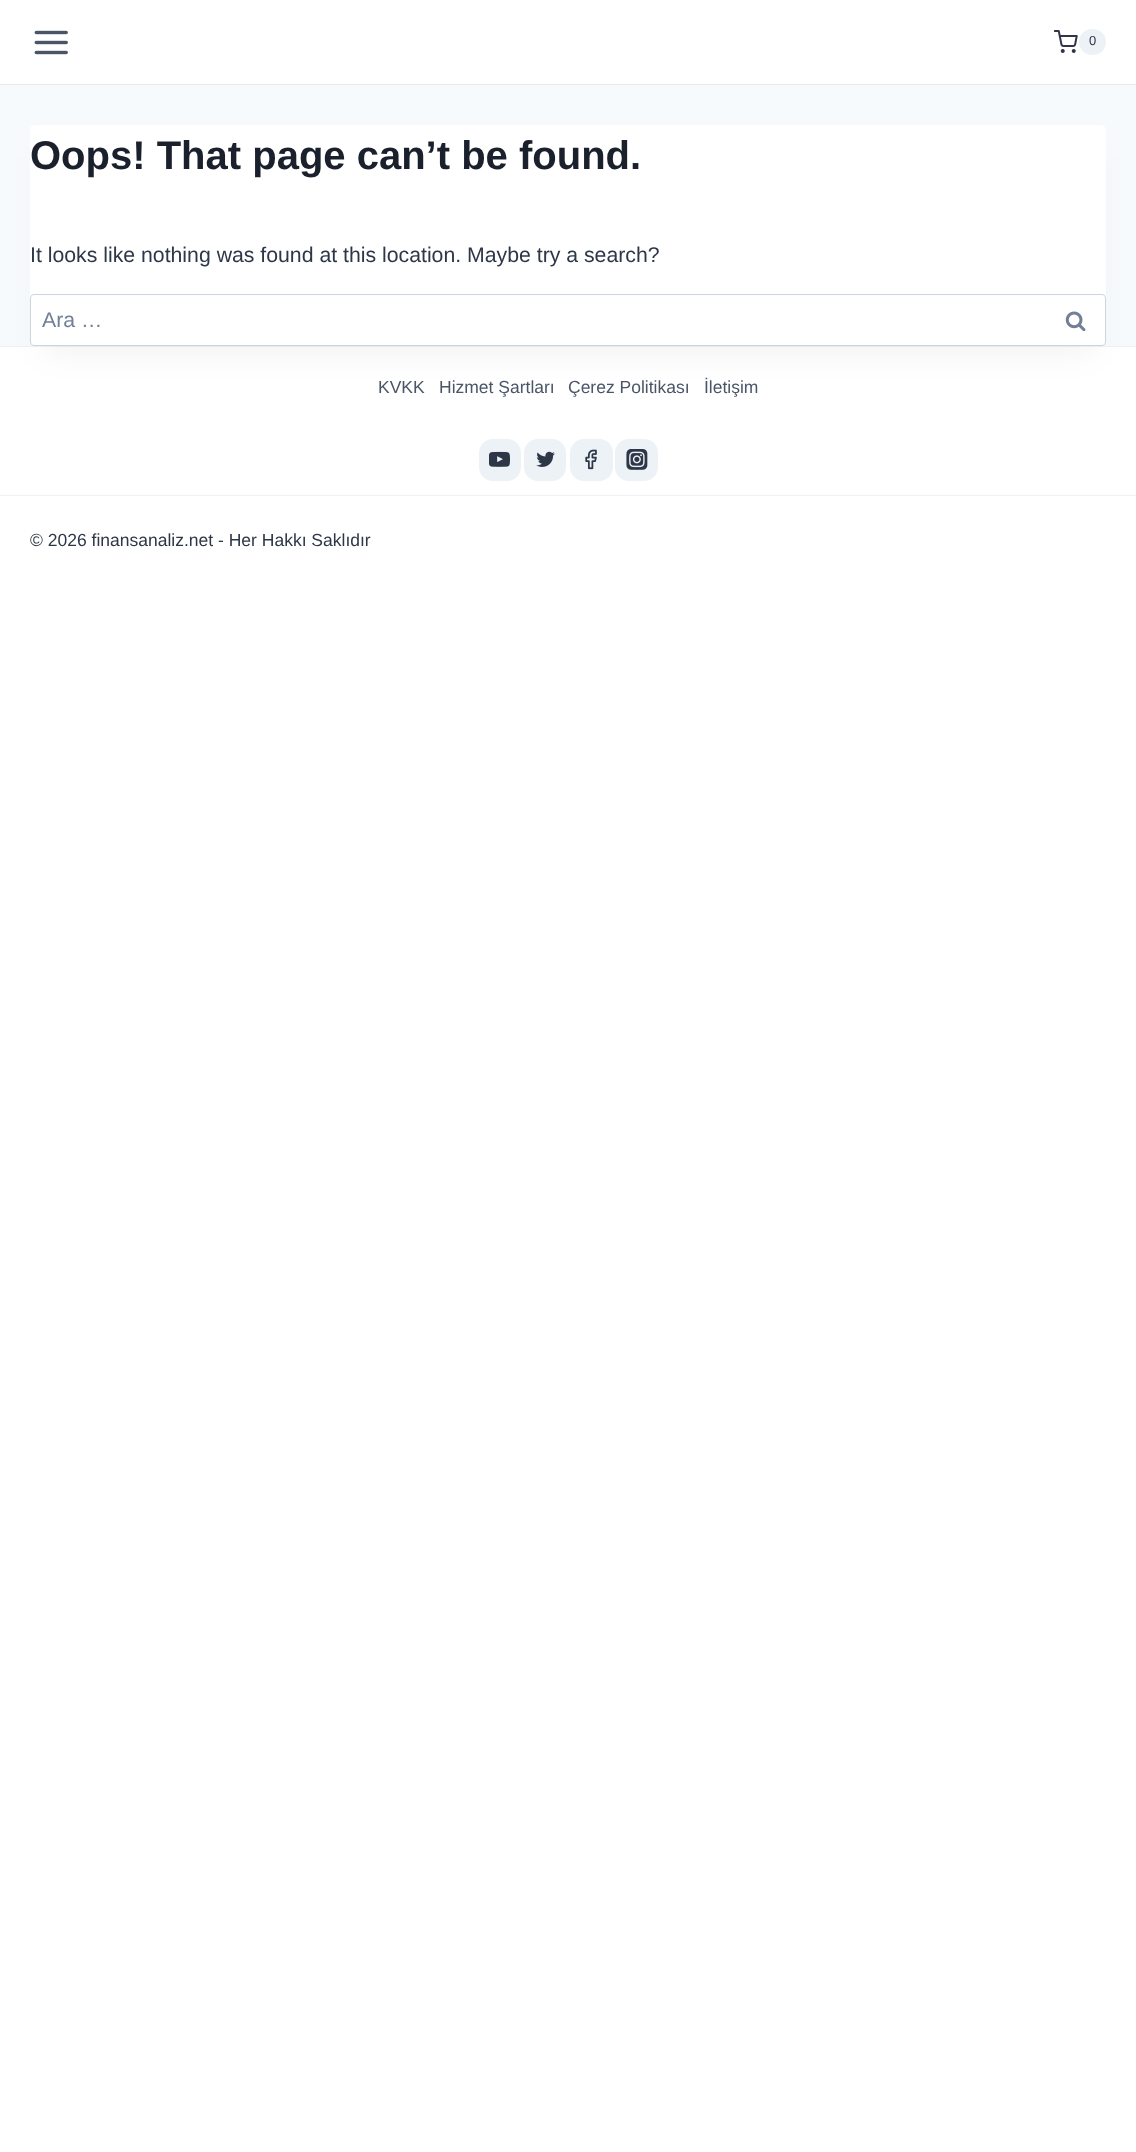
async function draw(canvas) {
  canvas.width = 1136;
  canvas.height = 2152;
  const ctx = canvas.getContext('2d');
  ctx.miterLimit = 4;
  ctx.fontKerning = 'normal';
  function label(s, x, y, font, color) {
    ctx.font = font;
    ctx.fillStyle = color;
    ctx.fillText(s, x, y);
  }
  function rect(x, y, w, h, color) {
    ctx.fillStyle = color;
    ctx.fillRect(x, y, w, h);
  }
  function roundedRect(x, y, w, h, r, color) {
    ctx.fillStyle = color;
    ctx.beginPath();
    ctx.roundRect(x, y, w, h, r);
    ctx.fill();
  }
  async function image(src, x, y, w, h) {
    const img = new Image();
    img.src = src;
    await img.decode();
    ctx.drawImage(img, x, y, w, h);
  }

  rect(0, 0, 1136, 2152, '#f7fafc');
  rect(0, 0, 1136, 84, '#fff');
  rect(0, 84, 1136, 1, '#e7e9ed');
  await image('assets/img1.png', 34, 30, 34, 25);
  await image('assets/img2.png', 1054, 30, 24, 23);
  roundedRect(1079, 29, 27, 26, 13, '#edf2f7');
  label('0', 1089, 45, '13px Liberation Sans', '#2d3748');
  rect(0, 347, 1136, 148, '#fff');
  rect(0, 346, 1136, 1, '#edf2f7');
  ctx.fillStyle = '#0000000d';
  ctx.filter = 'blur(15.5px)';
  ctx.beginPath();
  ctx.rect(43, 156, 1051, 197);
  ctx.fill();
  ctx.filter = 'none';
  roundedRect(30, 125, 1076, 221, 5, '#fff');
  label('Oops! That page can’t be found.', 30, 169, 'bold 40px Liberation Sans', '#1a202c');
  label('It looks like nothing was found at this location. Maybe try a search?', 30, 262, '21.25px Liberation Sans', '#2d3748');
  ctx.fillStyle = '#fff';
  ctx.beginPath();
  ctx.roundRect(30.5, 294.5, 1075, 51, 3.5);
  ctx.fill();
  ctx.strokeStyle = '#cbd5e0';
  ctx.stroke();
  label('Ara …', 42, 327, '21.25px Liberation Sans', '#718096');
  await image('assets/img3.png', 1065, 311, 21, 20);
  label('KVKK', 378, 393, '17.5px Liberation Sans', '#4a5568');
  label('Hizmet Şartları', 439, 393, '17.5px Liberation Sans', '#4a5568');
  label('Çerez Politikası', 568, 393, '17.5px Liberation Sans', '#4a5568');
  label('İletişim', 704, 393, '17.5px Liberation Sans', '#4a5568');
  roundedRect(479, 439, 42, 42, 14, '#edf2f7');
  await image('assets/img4.png', 489, 451, 21, 16);
  roundedRect(524, 439, 42, 42, 14, '#edf2f7');
  await image('assets/img5.png', 536, 451, 19, 16);
  roundedRect(570, 439, 43, 42, 14, '#edf2f7');
  await image('assets/img6.png', 585, 449, 12, 21);
  roundedRect(615, 439, 43, 42, 14, '#edf2f7');
  await image('assets/img7.png', 626, 449, 22, 21);
  rect(0, 496, 1136, 1656, '#fff');
  rect(0, 495, 1136, 1, '#edf2f7');
  label('© 2026 finansanaliz.net - Her Hakkı Saklıdır', 30, 546, '17.5px Liberation Sans', '#2d3748');
}

draw(document.querySelector('canvas'));
